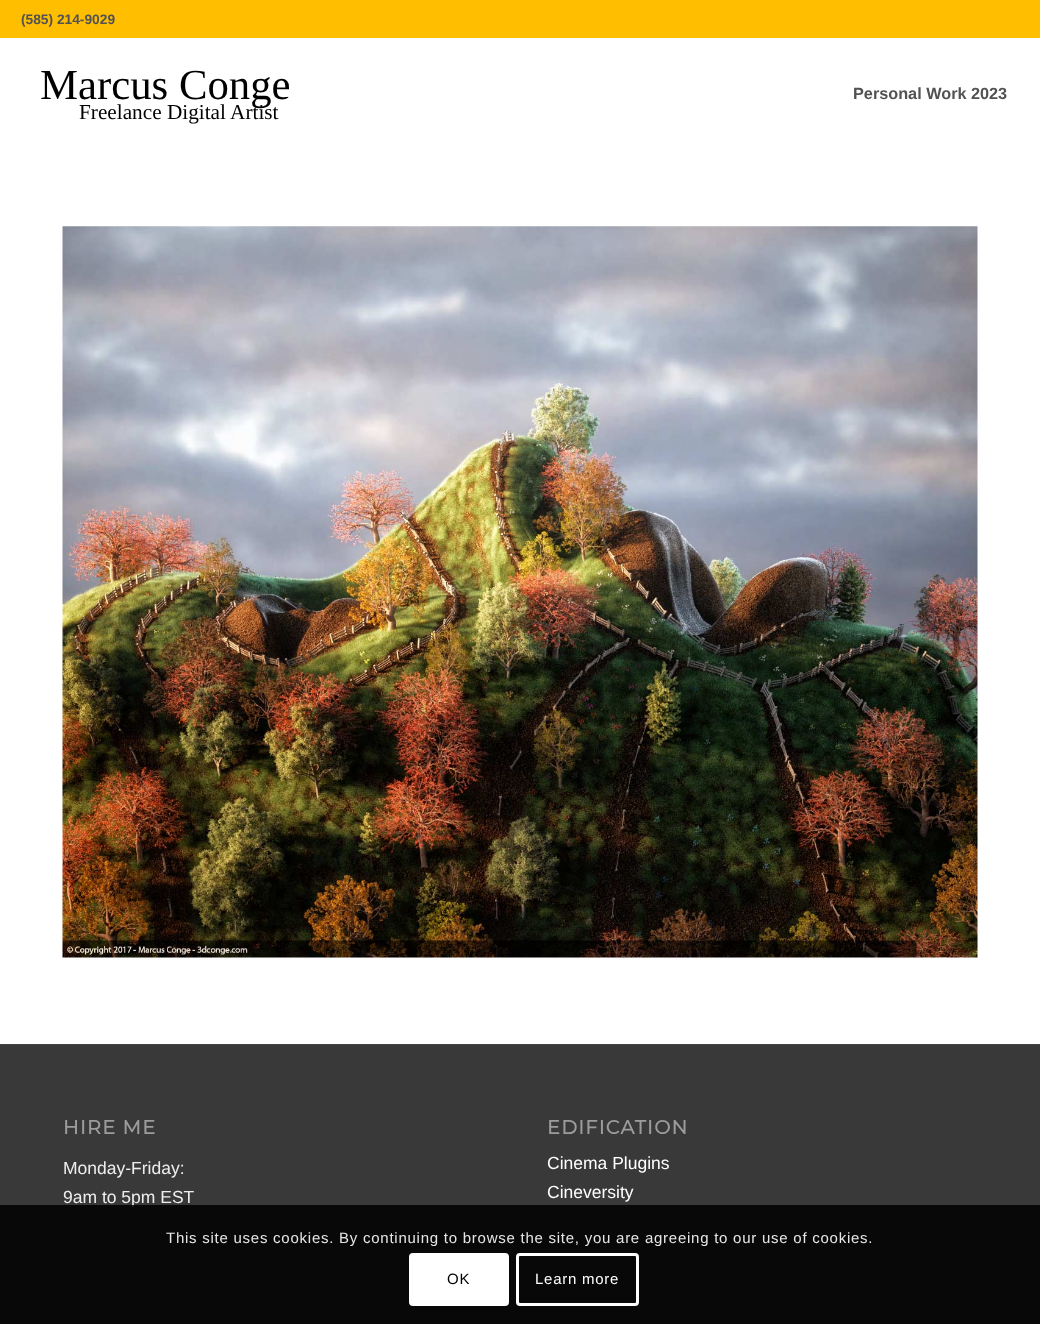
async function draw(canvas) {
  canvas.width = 1040;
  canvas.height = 1324;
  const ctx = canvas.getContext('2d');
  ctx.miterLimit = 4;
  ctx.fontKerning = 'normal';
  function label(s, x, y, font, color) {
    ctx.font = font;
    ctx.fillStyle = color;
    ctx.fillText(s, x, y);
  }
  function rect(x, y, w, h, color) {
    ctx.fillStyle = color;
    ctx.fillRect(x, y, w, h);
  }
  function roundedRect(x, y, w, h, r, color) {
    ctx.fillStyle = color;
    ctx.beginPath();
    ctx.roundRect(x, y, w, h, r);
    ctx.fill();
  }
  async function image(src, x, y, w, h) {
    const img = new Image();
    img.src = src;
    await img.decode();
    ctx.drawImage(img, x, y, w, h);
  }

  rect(0, 0, 1040, 1324, '#fff');
  rect(0, 0, 1040, 38, '#ffbf00');
  label('(585) 214-9029', 21, 24, 'bold 13.75px Liberation Sans', '#525252');
  label('Marcus Conge', 40, 99, '42.75px Liberation Serif', '#000');
  label('Freelance Digital Artist', 79, 119, '21.25px Liberation Serif', '#000');
  label('Personal Work 2023', 853, 99, 'bold 16.25px Liberation Sans', '#525252');
  await image('assets/img1.png', 62, 226, 916, 732);
  rect(0, 1045, 1040, 279, '#393939');
  rect(0, 1044, 1040, 1, '#444');
  ctx.letterSpacing = '1.25px';
  label('HIRE ME', 63, 1134, 'bold 19.25px Montserrat', '#9c9c9c');
  ctx.letterSpacing = '0px';
  label('Monday-Friday:', 63, 1174, '17.5px Liberation Sans', '#eee');
  label('9am to 5pm EST', 63, 1203, '17.5px Liberation Sans', '#eee');
  ctx.letterSpacing = '1.25px';
  label('EDIFICATION', 547, 1134, 'bold 19.25px Montserrat', '#9c9c9c');
  ctx.letterSpacing = '0px';
  label('Cinema Plugins', 547, 1169, '17.5px Liberation Sans', '#fff');
  label('Cineversity', 547, 1198, '17.5px Liberation Sans', '#fff');
  rect(0, 1205, 1040, 119, '#000000d9');
  ctx.letterSpacing = '0.75px';
  label('This site uses cookies. By continuing to browse the site, you are agreeing to our use of cookies.', 166, 1243, '15px Liberation Sans', '#e6e6e6');
  roundedRect(409, 1253, 100, 53, 4, '#fff');
  label('OK', 447, 1284, '15px Liberation Sans', '#000');
  ctx.beginPath();
  ctx.roundRect(517.5, 1254.5, 120, 50, 2.5);
  ctx.strokeStyle = '#fff';
  ctx.lineWidth = 3;
  ctx.stroke();
  label('Learn more', 535, 1284, '15px Liberation Sans', '#fff');
}

draw(document.querySelector('canvas'));
